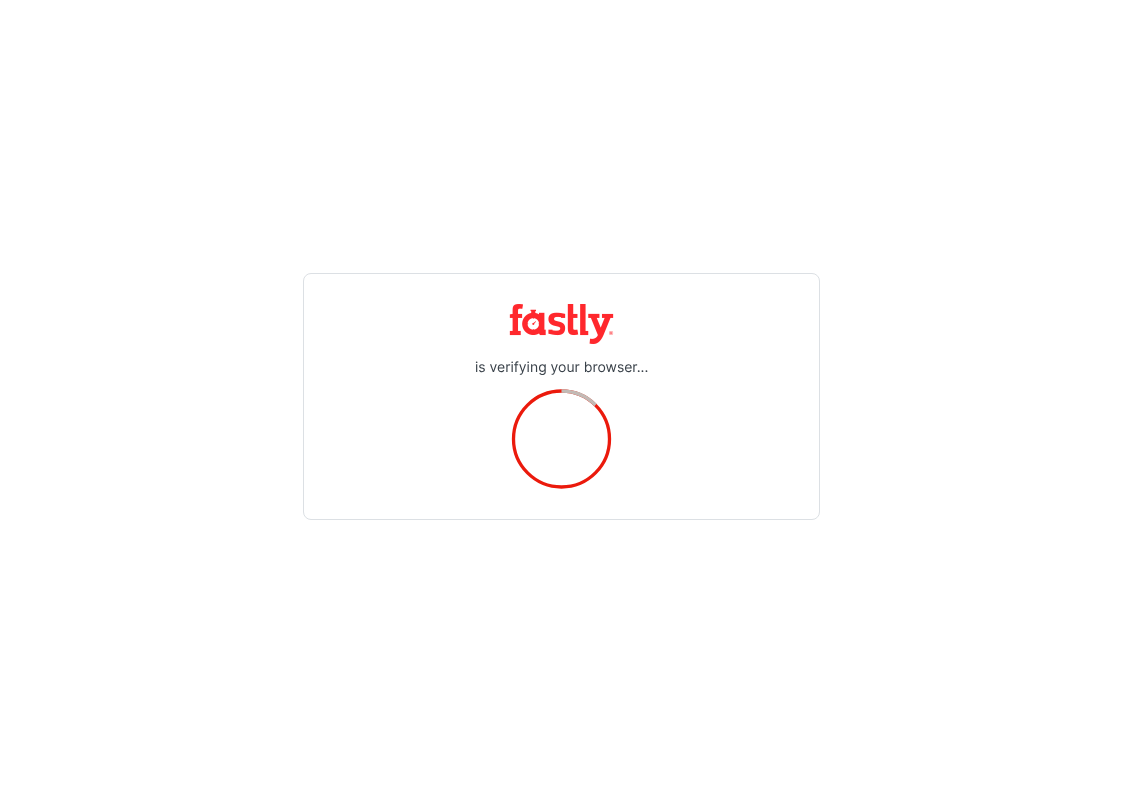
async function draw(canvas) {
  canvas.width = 1123;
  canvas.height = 792;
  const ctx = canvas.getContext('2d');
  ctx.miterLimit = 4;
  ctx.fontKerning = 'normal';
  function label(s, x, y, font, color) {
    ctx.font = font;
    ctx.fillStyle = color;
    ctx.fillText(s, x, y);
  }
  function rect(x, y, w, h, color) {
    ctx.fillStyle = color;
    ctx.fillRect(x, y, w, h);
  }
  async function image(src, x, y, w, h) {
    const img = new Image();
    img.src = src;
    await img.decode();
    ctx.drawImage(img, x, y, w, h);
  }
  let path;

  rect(0, 0, 1123, 792, '#fff');
  ctx.beginPath();
  ctx.roundRect(303.5, 273.5, 516, 246, 7.5);
  ctx.strokeStyle = '#dce0e4';
  ctx.stroke();
  await image('assets/img1.png', 509, 304, 105, 40);
  label('is verifying your browser...', 475, 372, '14px Inter', '#3a424a');
  path = new Path2D('M513.5 439C513.5 412.5 535 391 561.5 391C588 391 609.5 412.5 609.5 439C609.5 465.5 588 487 561.5 487C535 487 513.5 465.5 513.5 439Z');
  ctx.strokeStyle = '#eb1a0c';
  ctx.lineWidth = 3.3;
  ctx.stroke(path);
  path = new Path2D('M595.5 405C586.5 396 574 391 561.5 391');
  ctx.strokeStyle = '#c2bab5';
  ctx.stroke(path);
}

draw(document.querySelector('canvas'));
